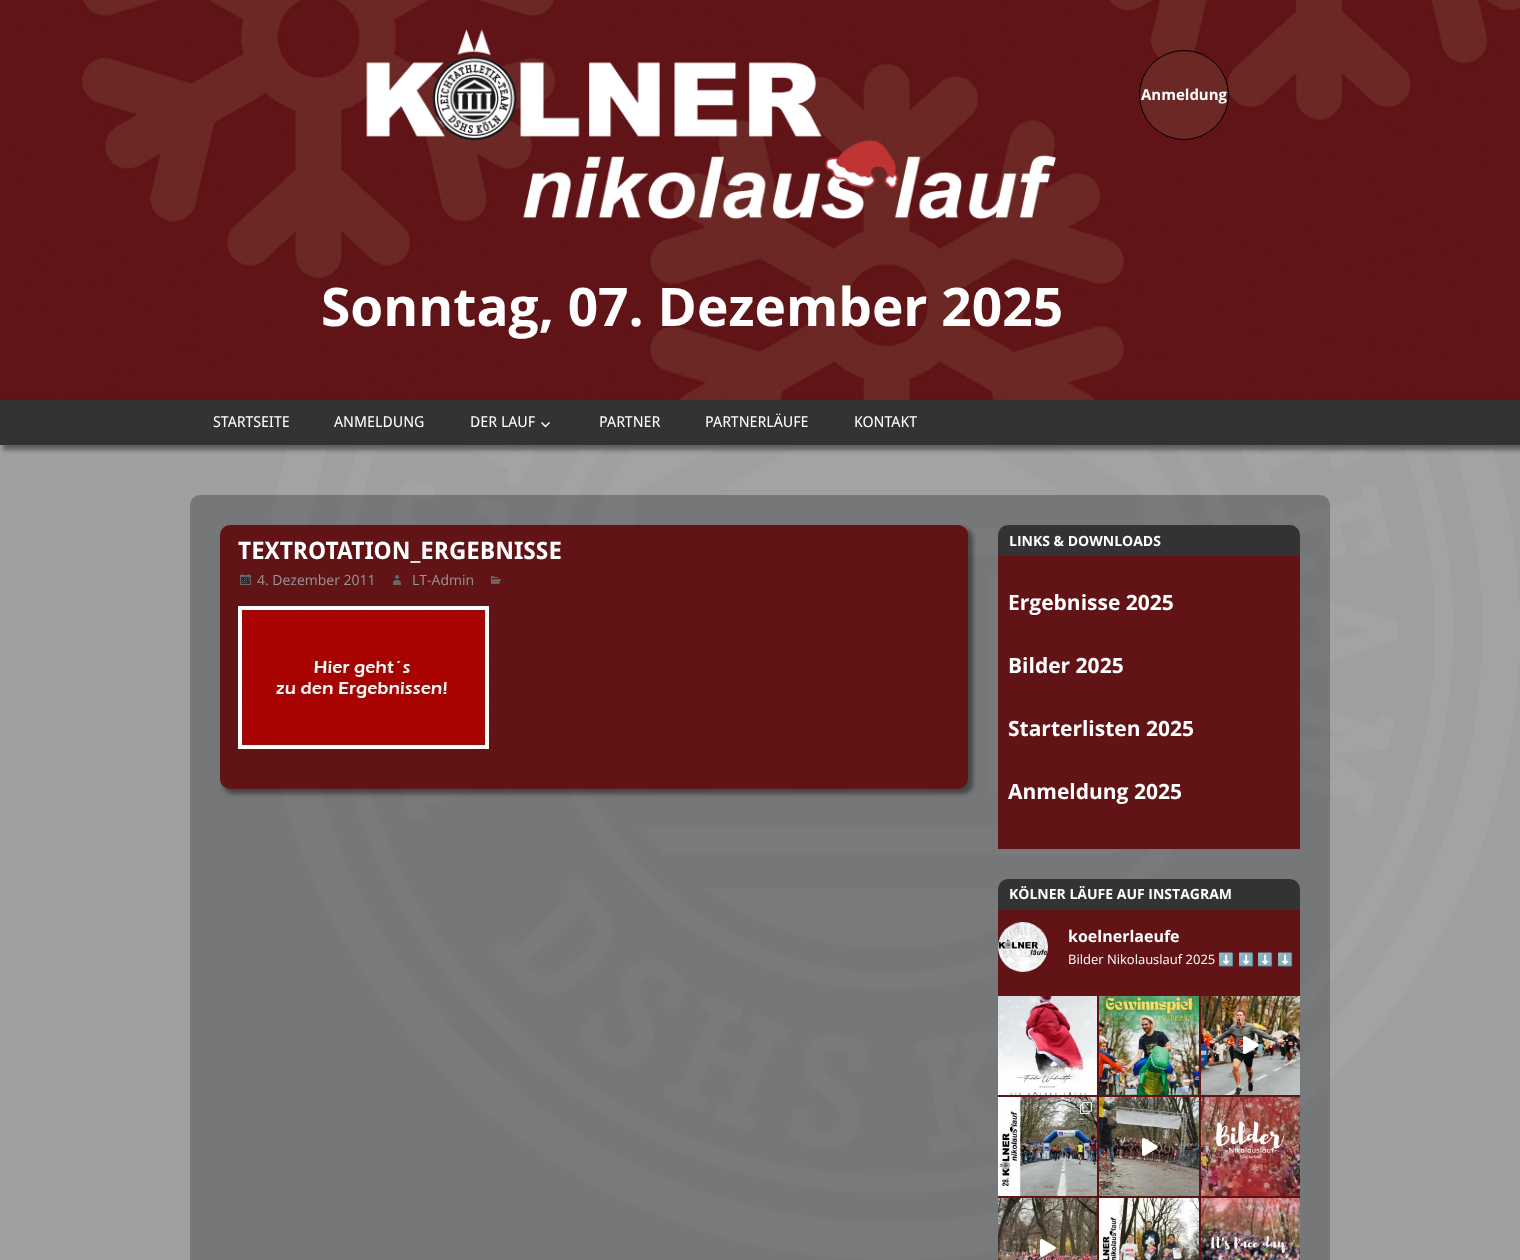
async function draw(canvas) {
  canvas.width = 1520;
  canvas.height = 1260;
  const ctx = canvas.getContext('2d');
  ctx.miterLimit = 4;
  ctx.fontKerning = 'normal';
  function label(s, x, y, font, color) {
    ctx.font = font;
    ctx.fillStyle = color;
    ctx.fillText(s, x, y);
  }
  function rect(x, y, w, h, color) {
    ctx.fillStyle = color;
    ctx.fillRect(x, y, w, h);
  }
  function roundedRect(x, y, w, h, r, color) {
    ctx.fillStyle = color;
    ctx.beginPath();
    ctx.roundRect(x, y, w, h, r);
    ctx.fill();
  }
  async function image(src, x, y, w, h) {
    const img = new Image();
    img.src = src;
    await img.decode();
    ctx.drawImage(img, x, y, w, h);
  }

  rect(0, 0, 1520, 1260, '#9d9fa1');
  await image('assets/img1.png', 270, 445, 1250, 815);
  await image('assets/img2.png', 0, 0, 1520, 400);
  ctx.fillStyle = '#6c2825';
  ctx.beginPath();
  ctx.arc(1184, 95, 44.5, 0, 2 * Math.PI);
  ctx.fill();
  ctx.strokeStyle = '#000';
  ctx.stroke();
  label('Anmeldung', 1141, 100, 'bold 15px Open Sans', '#fff');
  await image('assets/img3.png', 366, 29, 690, 191);
  label('Sonntag, 07. Dezember 2025', 321, 326, 'bold 53.25px Open Sans', '#fff');
  ctx.fillStyle = '#00000066';
  ctx.filter = 'blur(2px)';
  ctx.beginPath();
  ctx.rect(3, 403, 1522, 47);
  ctx.fill();
  ctx.filter = 'none';
  rect(0, 400, 1520, 45, '#333');
  label('STARTSEITE', 213, 427, '15px Droid Sans', '#fff');
  label('ANMELDUNG', 334, 427, '15px Droid Sans', '#fff');
  label('DER LAUF', 470, 427, '15px Droid Sans', '#fff');
  await image('assets/img4.png', 541, 422, 9, 6);
  label('PARTNER', 599, 427, '15px Droid Sans', '#fff');
  label('PARTNERLÄUFE', 705, 427, '15px Droid Sans', '#fff');
  label('KONTAKT', 854, 427, '15px Droid Sans', '#fff');
  roundedRect(190, 495, 1140, 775, 10, '#00000040');
  ctx.fillStyle = '#00000066';
  ctx.filter = 'blur(2px)';
  ctx.beginPath();
  ctx.roundRect(223, 528, 750, 266, 11);
  ctx.fill();
  ctx.filter = 'none';
  roundedRect(220, 525, 748, 264, 10, '#611316');
  label('TEXTROTATION_ERGEBNISSE', 238, 559, 'bold 24px Droid Sans', '#fff');
  await image('assets/img5.png', 240, 574, 11, 11);
  label('4. Dezember 2011', 257, 585, '14px Open Sans', '#999');
  await image('assets/img6.png', 393, 575, 8, 10);
  label('LT-Admin', 412, 585, '14px Open Sans', '#999');
  await image('assets/img7.png', 491, 576, 10, 8);
  await image('assets/img8.png', 238, 606, 251, 143);
  ctx.fillStyle = '#333';
  ctx.beginPath();
  ctx.roundRect(998, 525, 302, 31, [10, 10, 0, 0]);
  ctx.fill();
  label('LINKS & DOWNLOADS', 1009, 546, 'bold 14px Open Sans', '#fff');
  rect(998, 556, 302, 293, '#611316');
  label('Ergebnisse 2025', 1008, 610, 'bold 21px Open Sans', '#fff');
  label('Bilder 2025', 1008, 673, 'bold 21px Open Sans', '#fff');
  label('Starterlisten 2025', 1008, 736, 'bold 21px Open Sans', '#fff');
  label('Anmeldung 2025', 1008, 799, 'bold 21px Open Sans', '#fff');
  ctx.fillStyle = '#333';
  ctx.beginPath();
  ctx.roundRect(998, 879, 302, 31, [10, 10, 0, 0]);
  ctx.fill();
  label('KÖLNER LÄUFE AUF INSTAGRAM', 1009, 899, 'bold 14px Open Sans', '#fff');
  rect(998, 910, 302, 350, '#611316');
  await image('assets/img9.png', 998, 922, 50, 50);
  label('koelnerlaeufe', 1068, 942, 'bold 16px Open Sans', '#fff');
  label('Bilder Nikolauslauf 2025', 1068, 964, '13px Open Sans', '#fff');
  label('⬇️', 1218, 964, '13px Noto Color Emoji', '#fff');
  label('⬇️', 1238, 964, '13px Noto Color Emoji', '#fff');
  label('⬇️', 1257, 964, '13px Noto Color Emoji', '#fff');
  label('⬇️', 1277, 964, '13px Noto Color Emoji', '#fff');
  await image('assets/img10.png', 998, 996, 99, 99);
  await image('assets/img11.png', 1099, 996, 100, 99);
  await image('assets/img12.png', 1201, 996, 99, 99);
  await image('assets/img13.png', 1243, 1036, 16, 18);
  await image('assets/img14.png', 998, 1097, 99, 99);
  await image('assets/img15.png', 1080, 1102, 12, 12);
  await image('assets/img16.png', 1099, 1097, 100, 99);
  await image('assets/img17.png', 1142, 1138, 16, 18);
  await image('assets/img18.png', 1201, 1097, 99, 99);
  await image('assets/img19.png', 998, 1198, 99, 62);
  await image('assets/img20.png', 1040, 1239, 16, 18);
  await image('assets/img21.png', 1099, 1198, 100, 62);
  await image('assets/img22.png', 1182, 1203, 12, 12);
  await image('assets/img23.png', 1201, 1198, 99, 62);
}

draw(document.querySelector('canvas'));
